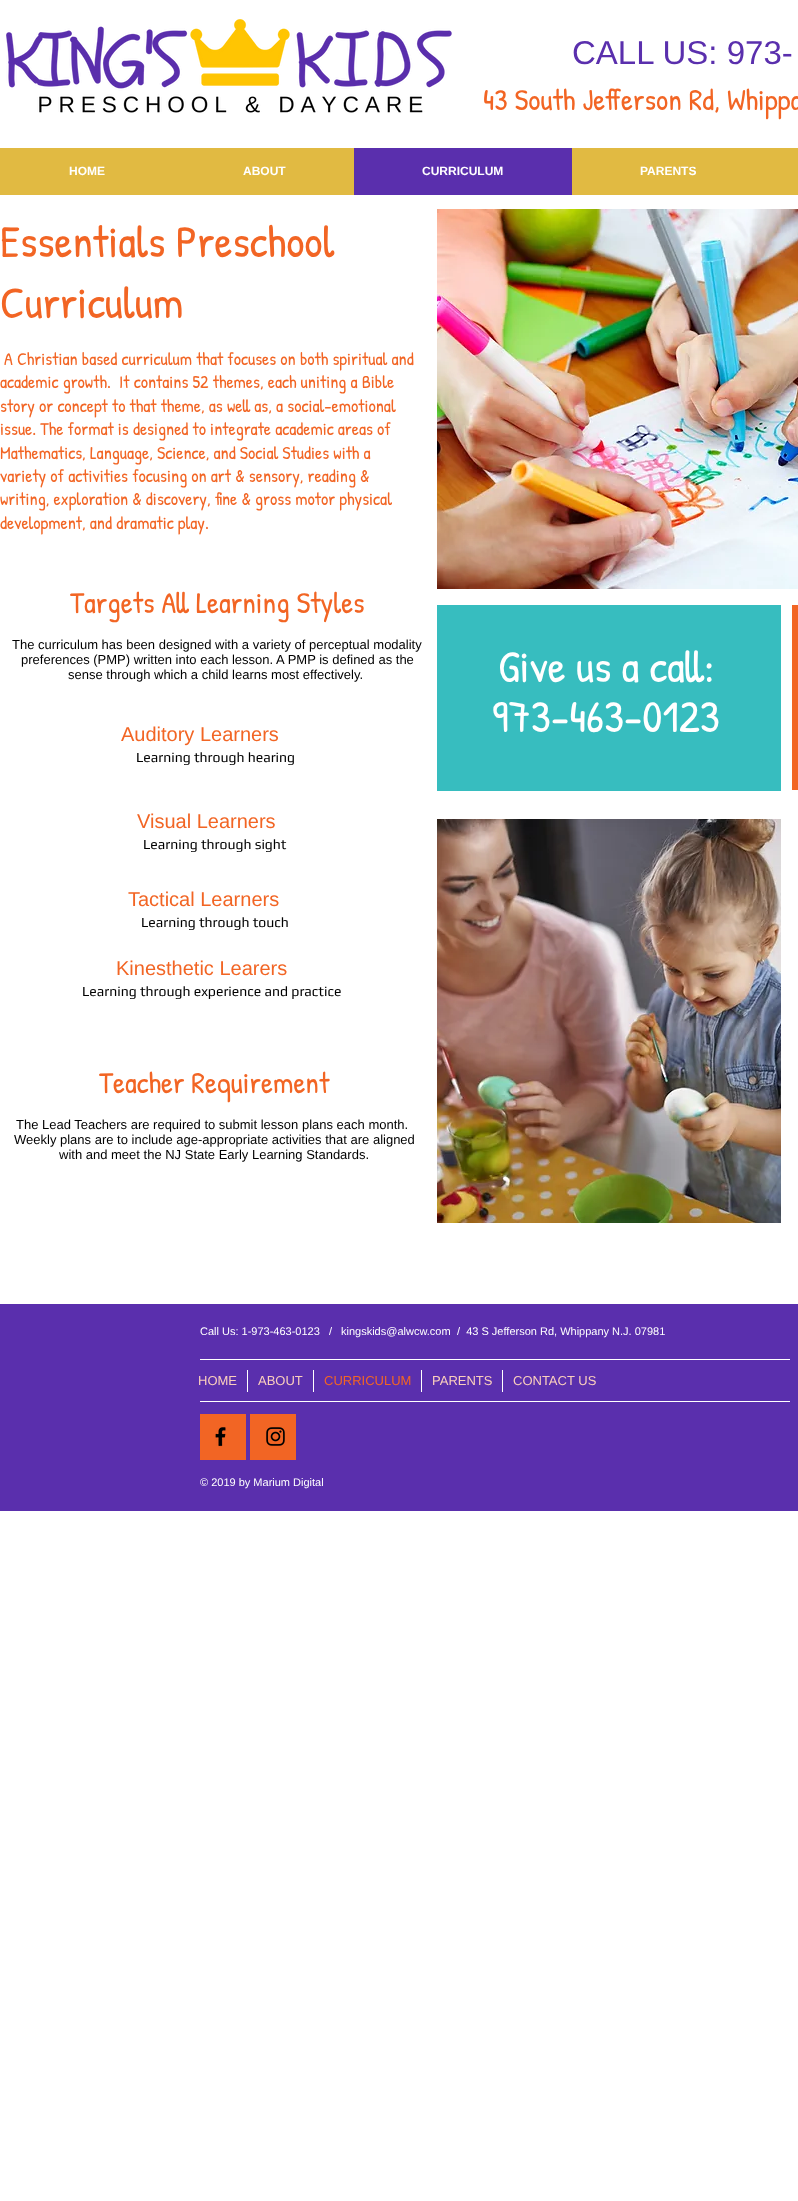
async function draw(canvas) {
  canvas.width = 798;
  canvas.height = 2201;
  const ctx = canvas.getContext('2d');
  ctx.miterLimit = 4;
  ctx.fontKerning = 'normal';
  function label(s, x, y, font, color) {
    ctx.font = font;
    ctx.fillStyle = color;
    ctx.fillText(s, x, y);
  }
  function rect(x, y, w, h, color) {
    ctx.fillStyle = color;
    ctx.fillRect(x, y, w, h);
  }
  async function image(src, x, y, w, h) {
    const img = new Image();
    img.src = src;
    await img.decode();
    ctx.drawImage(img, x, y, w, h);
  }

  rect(0, 0, 798, 2201, '#fff');
  await image('assets/img1.png', 6, 19, 446, 94);
  label('CALL US: 973-', 572, 64, '33px Liberation Sans', '#5a2fad');
  label('43 South Jefferson Rd, Whippa', 483, 110, '30px Patrick Hand', '#f26524');
  rect(0, 148, 354, 47, '#e1ba42');
  label('HOME', 69, 175, 'bold 12px Liberation Sans', '#fff');
  label('ABOUT', 243, 175, 'bold 12px Liberation Sans', '#fff');
  rect(354, 148, 218, 47, '#5a2fad');
  label('CURRICULUM', 422, 175, 'bold 12px Liberation Sans', '#fff');
  rect(572, 148, 226, 47, '#e1ba42');
  label('PARENTS', 640, 175, 'bold 12px Liberation Sans', '#fff');
  label('Essentials Preschool', 0, 257, '45px Patrick Hand', '#f26524');
  label('Curriculum', 0, 318, '45px Patrick Hand', '#f26524');
  label('A Christian based curriculum that focuses on both spiritual and', 4, 365, '18px Patrick Hand', '#f26524');
  label('academic growth.  It contains 52 themes, each uniting a Bible', 0, 388, '18px Patrick Hand', '#f26524');
  label('story or concept to that theme, as well as, a social-emotional', 0, 412, '18px Patrick Hand', '#f26524');
  label('issue. The format is designed to integrate academic areas of', 0, 435, '18px Patrick Hand', '#f26524');
  label('Mathematics, Language, Science, and Social Studies with a', 0, 459, '18px Patrick Hand', '#f26524');
  label('variety of activities focusing on art & sensory, reading &', 0, 482, '18px Patrick Hand', '#f26524');
  label('writing, exploration & discovery, fine & gross motor physical', 0, 505, '18px Patrick Hand', '#f26524');
  label('development, and dramatic play.', 0, 529, '18px Patrick Hand', '#f26524');
  await image('assets/img2.png', 437, 209, 361, 380);
  label('Targets All Learning Styles', 70, 613, '30px Patrick Hand', '#f26524');
  label('The curriculum has been designed with a variety of perceptual modality', 12, 649, '13px Liberation Sans', '#000');
  label('preferences (PMP) written into each lesson. A PMP is defined as the', 21, 664, '13px Liberation Sans', '#000');
  label('sense through which a child learns most effectively.', 68, 679, '13px Liberation Sans', '#000');
  rect(437, 605, 344, 186, '#37bdbf');
  label('Give us a call:', 498, 682, '45px Patrick Hand', '#fff');
  label('973-463-0123', 492, 732, '45px Patrick Hand', '#fff');
  rect(792, 605, 6, 185, '#f26524');
  label('Auditory Learners', 121, 741, '20px Liberation Sans', '#f26524');
  label('Learning through hearing', 136, 762, '14px Play', '#000');
  label('Visual Learners', 137, 828, '20px Liberation Sans', '#f26524');
  await image('assets/img3.png', 437, 819, 344, 404);
  label('Learning through sight', 143, 849, '14px Play', '#000');
  label('Tactical Learners', 128, 906, '20px Liberation Sans', '#f26524');
  label('Learning through touch', 141, 927, '14px Play', '#000');
  label('Kinesthetic Learers', 116, 975, '20px Liberation Sans', '#f26524');
  label('Learning through experience and practice', 82, 996, '14px Play', '#000');
  label('Teacher Requirement', 99, 1093, '30px Patrick Hand', '#f26524');
  label('The Lead Teachers are required to submit lesson plans each month.', 16, 1129, '13px Liberation Sans', '#000');
  label('Weekly plans are to include age-appropriate activities that are aligned', 14, 1144, '13px Liberation Sans', '#000');
  label('with and meet the NJ State Early Learning Standards.', 59, 1159, '13px Liberation Sans', '#000');
  rect(0, 1304, 798, 207, '#5a2fad');
  label('Call Us: 1-973-463-0123   /', 200, 1335, '11px Liberation Sans', '#fff');
  label('kingskids@alwcw.com', 341, 1335, '11px Liberation Sans', '#fff');
  label('/  43 S Jefferson Rd, Whippany N.J. 07981', 457, 1335, '11px Liberation Sans', '#fff');
  rect(200, 1359, 590, 1, '#fff');
  label('HOME', 198, 1385, '13px Liberation Sans', '#fbcfbd');
  rect(247, 1370, 1, 22, '#fff');
  label('ABOUT', 258, 1385, '13px Liberation Sans', '#fbcfbd');
  rect(313, 1370, 1, 22, '#fff');
  label('CURRICULUM', 324, 1385, '13px Liberation Sans', '#f26524');
  rect(421, 1370, 1, 22, '#fff');
  label('PARENTS', 432, 1385, '13px Liberation Sans', '#fbcfbd');
  rect(502, 1370, 1, 22, '#fff');
  label('CONTACT US', 513, 1385, '13px Liberation Sans', '#fbcfbd');
  rect(200, 1401, 590, 1, '#fff');
  rect(200, 1414, 46, 46, '#f26524');
  rect(250, 1414, 46, 46, '#f26524');
  await image('assets/img4.png', 215, 1427, 11, 20);
  await image('assets/img5.png', 266, 1427, 19, 19);
  label('© 2019 by Marium Digital', 200, 1486, '11px Liberation Sans', '#fff');
}

draw(document.querySelector('canvas'));
